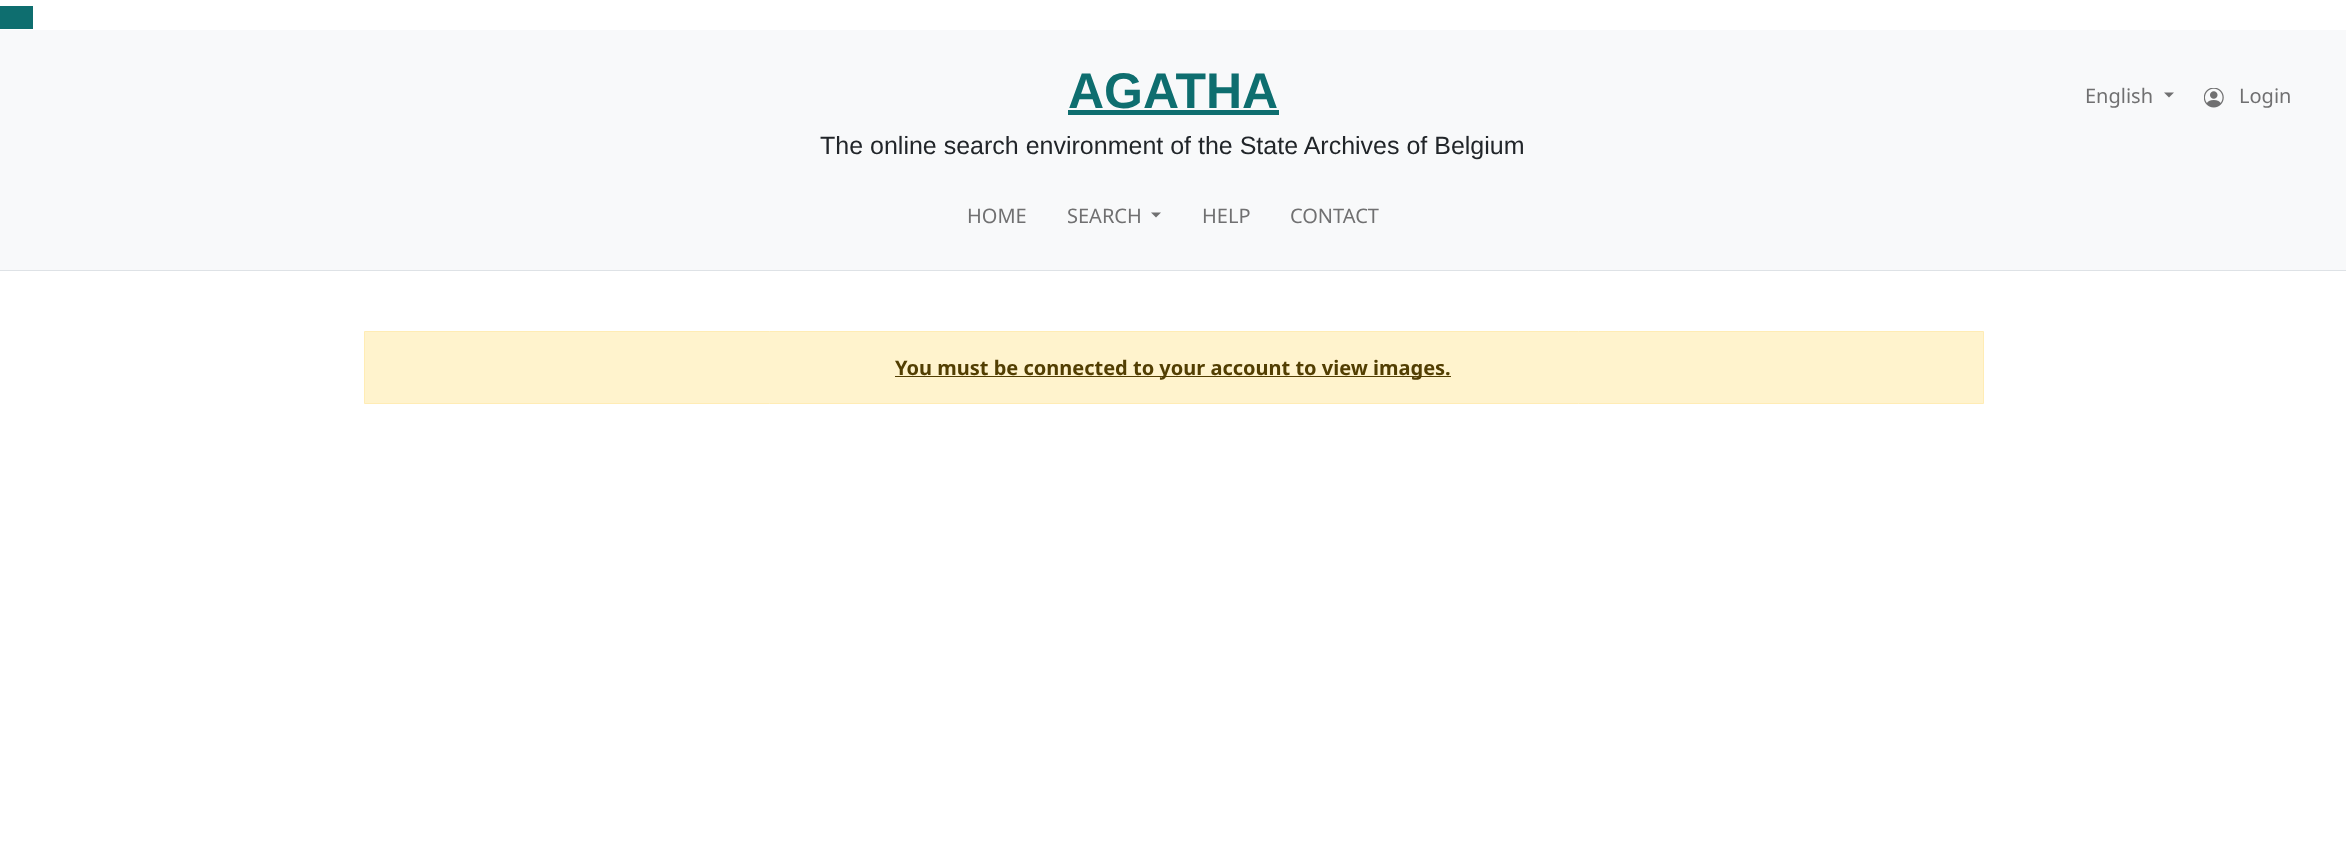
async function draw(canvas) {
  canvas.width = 2346;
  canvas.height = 846;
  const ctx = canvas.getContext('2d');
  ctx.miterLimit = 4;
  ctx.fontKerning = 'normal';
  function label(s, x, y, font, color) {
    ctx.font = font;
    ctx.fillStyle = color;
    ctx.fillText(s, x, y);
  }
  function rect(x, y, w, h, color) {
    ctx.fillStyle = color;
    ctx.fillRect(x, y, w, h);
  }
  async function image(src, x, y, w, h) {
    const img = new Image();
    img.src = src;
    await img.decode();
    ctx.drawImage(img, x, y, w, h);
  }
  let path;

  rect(0, 0, 2346, 846, '#fff');
  rect(0, 6, 33, 23, '#0e6e6f');
  rect(0, 30, 2346, 240, '#f8f9fa');
  rect(0, 270, 2346, 1, '#dee2e6');
  label('AGATHA', 1068, 108, 'bold 50px Liberation Sans', '#0e6e6f');
  rect(1068, 110, 211, 5, '#0e6e6f');
  label('The online search environment of the State Archives of Belgium', 820, 154, '25px Liberation Sans', '#212529');
  label('HOME', 967, 223, '20px Noto Sans', '#707071');
  label('SEARCH', 1067, 223, '20px Noto Sans', '#707071');
  path = new Path2D('M1151 212.5H1161L1156 217.5Z');
  ctx.fill(path);
  label('HELP', 1202, 223, '20px Noto Sans', '#707071');
  label('CONTACT', 1290, 223, '20px Noto Sans', '#707071');
  label('English', 2085, 103, '20px Noto Sans', '#707071');
  path = new Path2D('M2164 92.5H2174L2169 97.5Z');
  ctx.fill(path);
  await image('assets/img1.png', 2204, 88, 20, 20);
  label('Login', 2239, 103, '20px Noto Sans', '#707071');
  ctx.fillStyle = '#fff3cd';
  ctx.beginPath();
  ctx.rect(364.5, 331.5, 1619, 72);
  ctx.fill();
  ctx.strokeStyle = '#ffecb5';
  ctx.stroke();
  rect(895, 376, 556, 1, '#523e02');
  label('You must be connected to your account to view images.', 895, 375, 'bold 20px Noto Sans', '#523e02');
}

draw(document.querySelector('canvas'));
